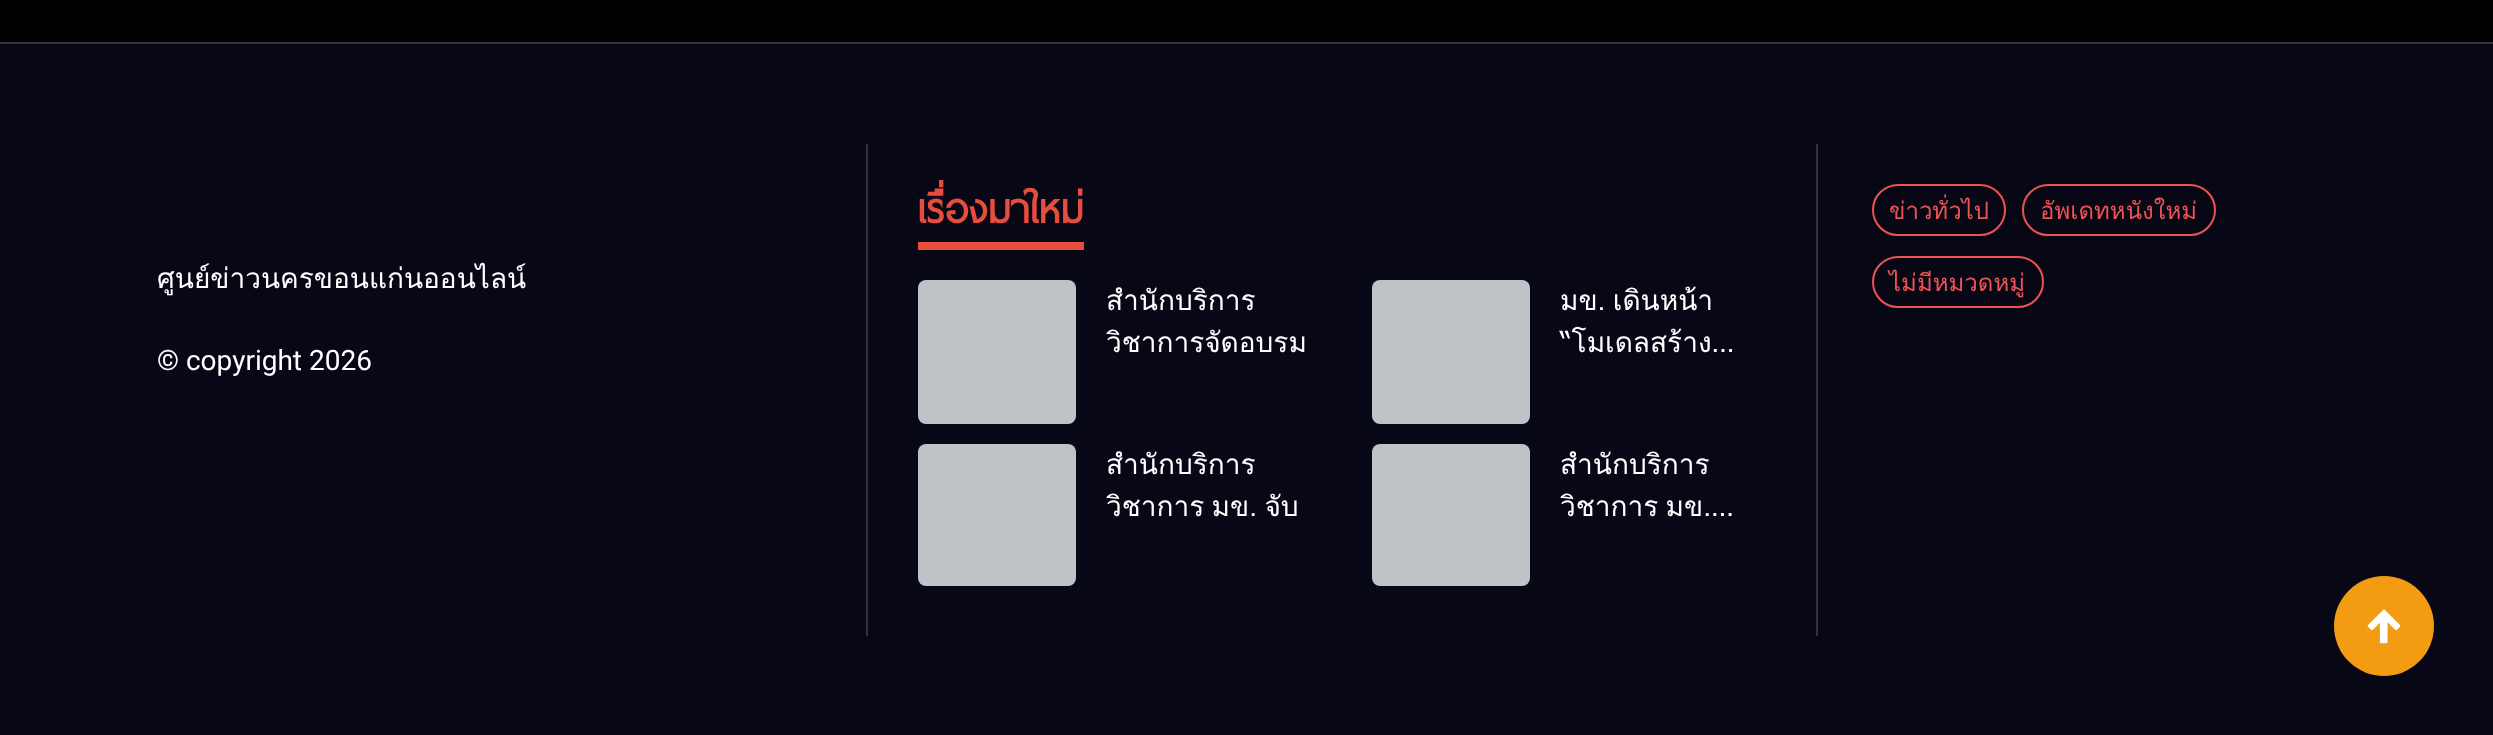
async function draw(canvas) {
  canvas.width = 2493;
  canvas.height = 735;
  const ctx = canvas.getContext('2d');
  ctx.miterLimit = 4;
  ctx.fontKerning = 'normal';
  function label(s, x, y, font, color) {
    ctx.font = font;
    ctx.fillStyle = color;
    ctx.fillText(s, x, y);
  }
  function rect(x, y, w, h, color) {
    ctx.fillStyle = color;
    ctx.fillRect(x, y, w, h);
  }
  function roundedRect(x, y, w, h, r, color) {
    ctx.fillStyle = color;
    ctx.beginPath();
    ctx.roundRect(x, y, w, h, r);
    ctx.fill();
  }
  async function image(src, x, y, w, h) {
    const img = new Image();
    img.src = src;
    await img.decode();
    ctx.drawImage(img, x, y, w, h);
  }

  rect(0, 0, 2493, 735, '#000');
  rect(0, 44, 2493, 691, '#070716');
  rect(0, 42, 2493, 2, '#333');
  rect(1816, 144, 2, 492, '#333');
  rect(918, 242, 166, 8, '#e74c3c');
  label('เรื่องมาใหม่', 917, 223, 'bold 52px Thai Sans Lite', '#e74c3c');
  roundedRect(918, 280, 158, 144, 8, '#bdc3c7');
  ctx.save();
  ctx.beginPath();
  ctx.rect(1106, 280, 204, 84);
  ctx.clip();
  label('สำนักบริการ', 1106, 310, '28px Loma', '#fff');
  label('วิชาการจัดอบรม', 1106, 352, '28px Loma', '#fff');
  ctx.restore();
  roundedRect(1372, 280, 158, 144, 8, '#bdc3c7');
  ctx.wordSpacing = '-2px';
  label('มข. เดินหน้า', 1560, 310, '28px Loma', '#fff');
  ctx.wordSpacing = '0px';
  label('“โมเดลสร้าง…', 1560, 352, '28px Loma', '#fff');
  roundedRect(918, 444, 158, 142, 8, '#bdc3c7');
  ctx.save();
  ctx.beginPath();
  ctx.rect(1106, 444, 204, 84);
  ctx.clip();
  label('สำนักบริการ', 1106, 474, '28px Loma', '#fff');
  ctx.wordSpacing = '-2px';
  label('วิชาการ มข. จับ', 1106, 516, '28px Loma', '#fff');
  ctx.restore();
  roundedRect(1372, 444, 158, 142, 8, '#bdc3c7');
  ctx.save();
  ctx.beginPath();
  ctx.rect(1560, 444, 204, 84);
  ctx.clip();
  label('สำนักบริการ', 1560, 474, '28px Loma', '#fff');
  ctx.wordSpacing = '-2px';
  label('วิชาการ มข.…', 1560, 516, '28px Loma', '#fff');
  ctx.restore();
  ctx.beginPath();
  ctx.roundRect(1873, 185, 132, 50, 25);
  ctx.strokeStyle = '#ee5253';
  ctx.lineWidth = 2;
  ctx.stroke();
  label('ข่าวทั่วไป', 1889, 219, '24px Loma', '#ee5253');
  ctx.beginPath();
  ctx.roundRect(2023, 185, 192, 50, 25);
  ctx.stroke();
  label('อัพเดทหนังใหม่', 2040, 219, '24px Loma', '#ee5253');
  ctx.beginPath();
  ctx.roundRect(1873, 257, 170, 50, 25);
  ctx.stroke();
  label('ไม่มีหมวดหมู่', 1889, 291, '24px Loma', '#ee5253');
  rect(866, 144, 2, 492, '#333');
  label('ศูนย์ข่าวนครขอนแก่นออนไลน์', 157, 288, '28px Loma', '#fff');
  label('© copyright 2026', 157, 370, '28px Roboto', '#fff');
  ctx.fillStyle = '#f39c12';
  ctx.beginPath();
  ctx.arc(2384, 626, 50, 0, 2 * Math.PI);
  ctx.fill();
  await image('assets/img1.png', 2367, 609, 34, 35);
}

draw(document.querySelector('canvas'));
